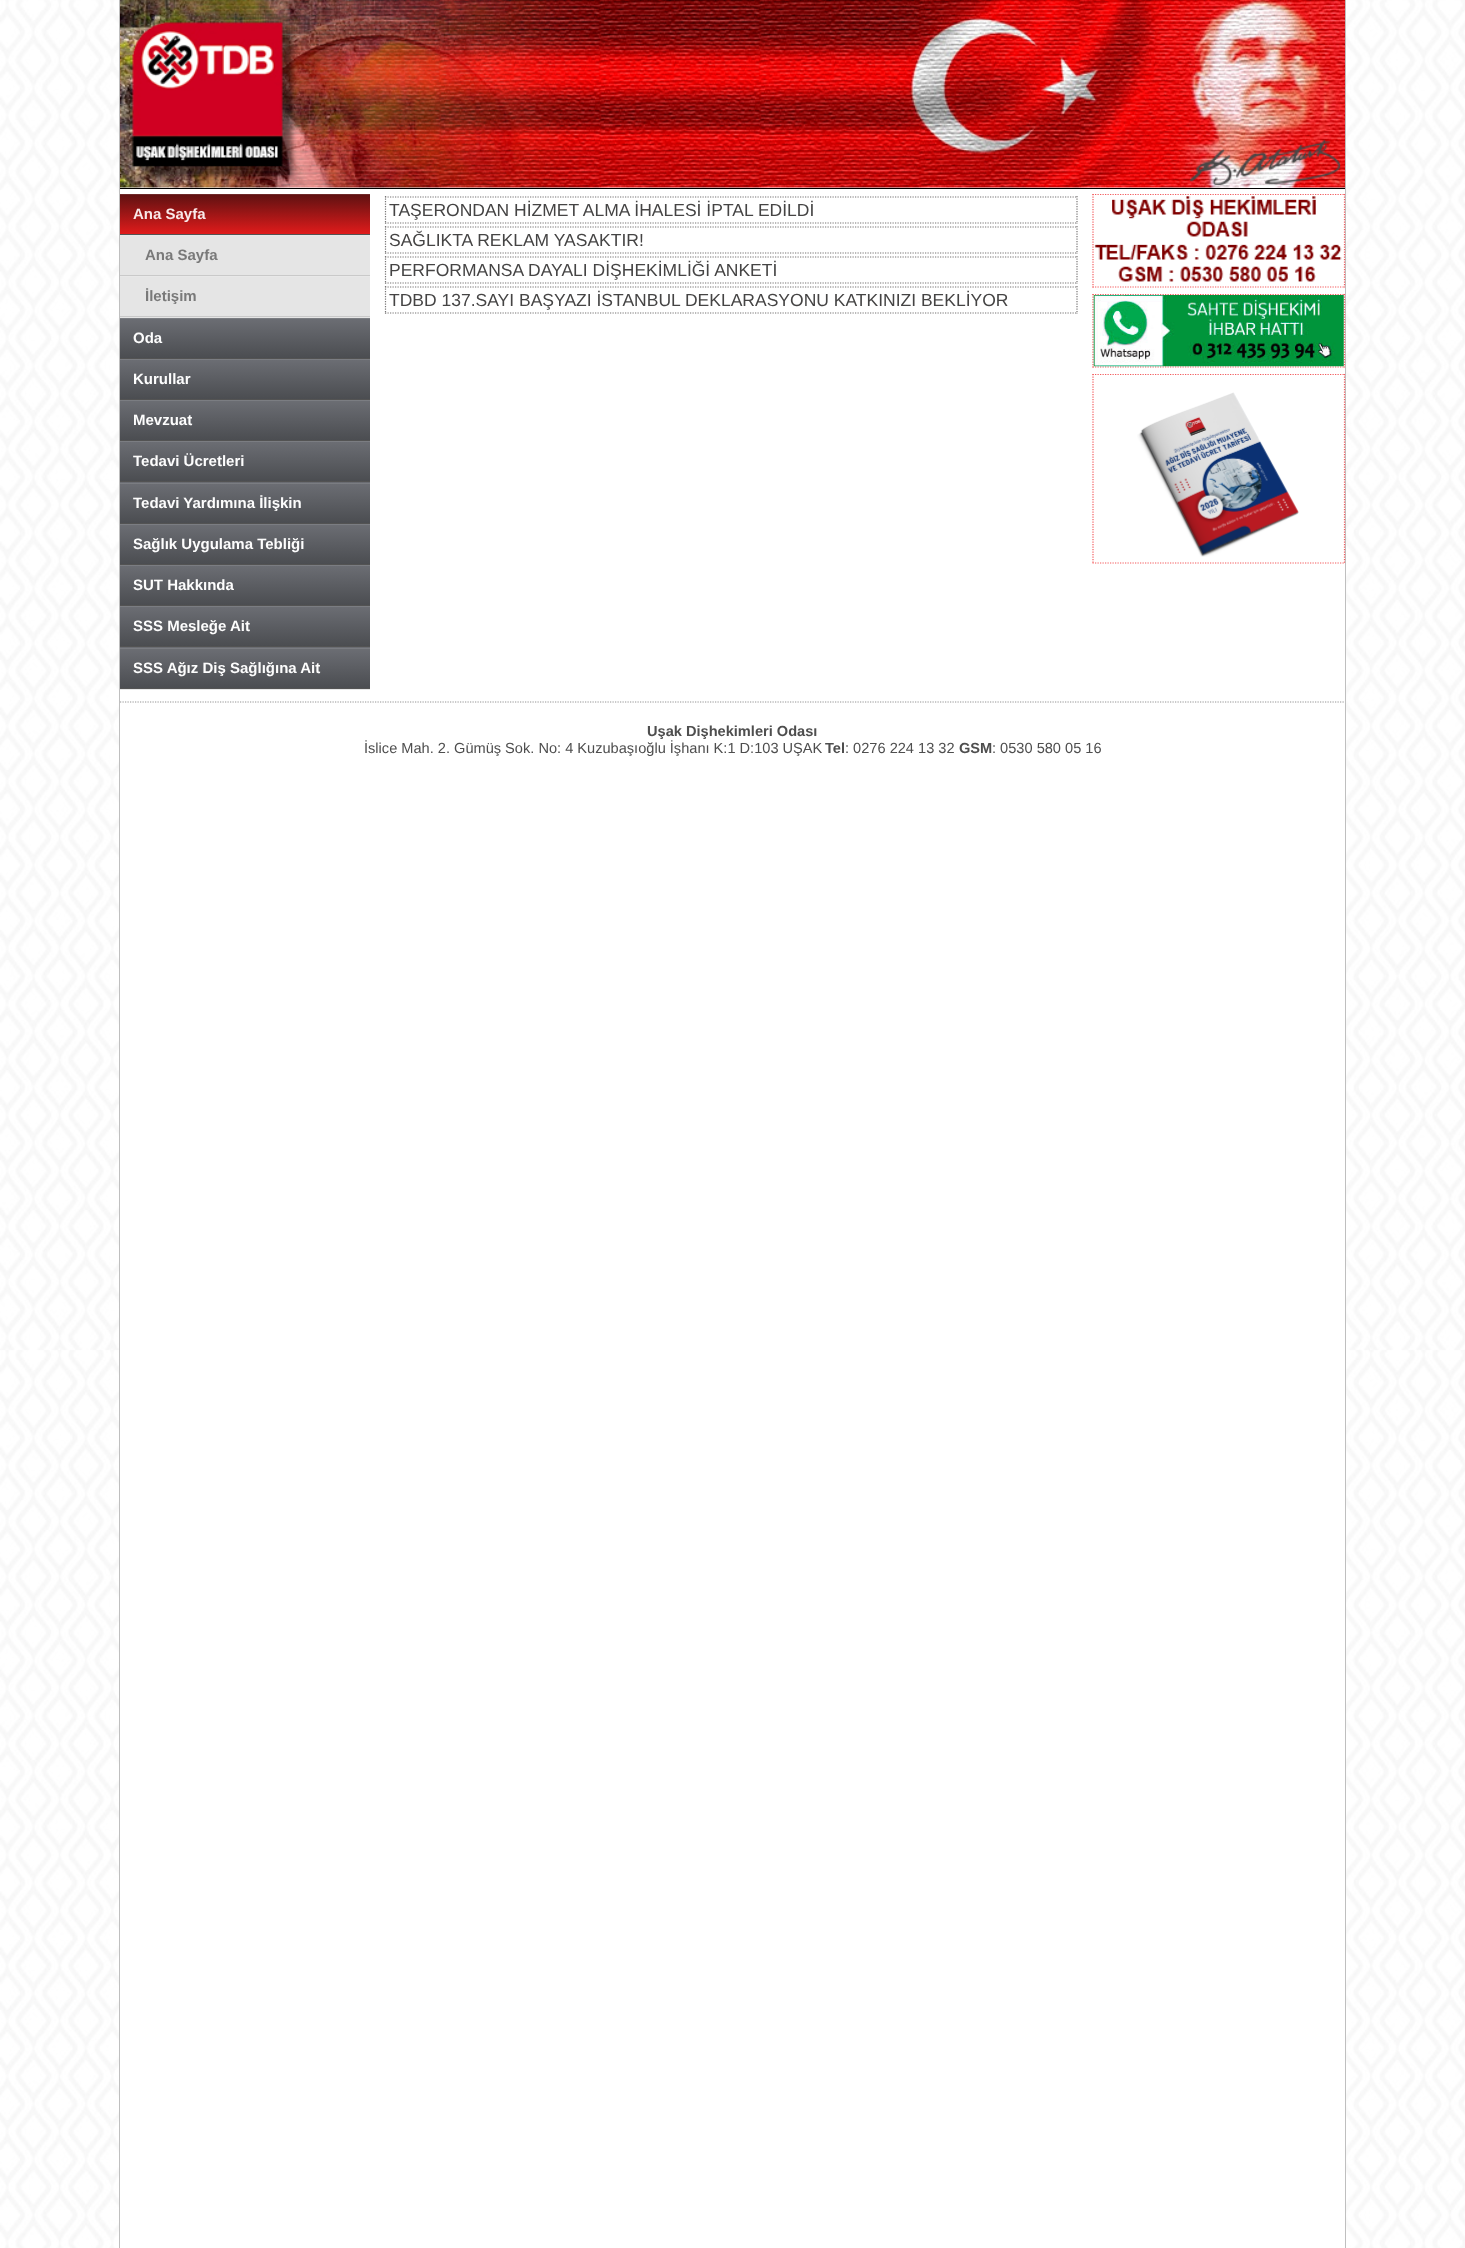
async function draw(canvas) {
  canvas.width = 1465;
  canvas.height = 2248;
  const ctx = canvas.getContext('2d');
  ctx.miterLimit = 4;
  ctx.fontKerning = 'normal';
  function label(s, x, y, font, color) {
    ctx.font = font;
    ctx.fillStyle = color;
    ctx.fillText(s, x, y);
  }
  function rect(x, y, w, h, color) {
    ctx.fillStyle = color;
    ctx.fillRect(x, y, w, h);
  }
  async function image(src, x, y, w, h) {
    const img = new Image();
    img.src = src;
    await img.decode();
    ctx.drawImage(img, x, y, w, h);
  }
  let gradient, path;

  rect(0, 0, 1465, 2248, '#fff');
  await image('assets/img1.png', 0, 0, 1465, 2248);
  rect(120, 187, 1225, 2061, '#fff');
  rect(1345, 0, 1, 2248, '#bfbfbf');
  rect(119, 0, 1, 2248, '#bfbfbf');
  await image('assets/img2.png', 120, 0, 1225, 188);
  rect(120, 188, 1225, 1, '#000');
  gradient = ctx.createLinearGradient(245, 194, 245, 234);
  gradient.addColorStop(0, '#5d1111');
  gradient.addColorStop(1, '#e01b1b');
  ctx.fillStyle = gradient;
  ctx.fillRect(120, 195, 250, 39);
  rect(120, 194, 250, 1, '#6f2929');
  rect(120, 234, 250, 1, '#535353');
  label('Ana Sayfa', 133, 219, 'bold 15px Liberation Sans', '#f9e9e9');
  rect(120, 236, 250, 39, '#e5e5e5');
  rect(120, 235, 250, 1, '#e8e8e8');
  rect(120, 275, 250, 1, '#c9c9c9');
  label('Ana Sayfa', 145, 260, 'bold 15px Liberation Sans', '#797979');
  rect(120, 277, 250, 41, '#e5e5e5');
  rect(120, 276, 250, 1, '#e8e8e8');
  rect(120, 316, 250, 1, '#c9c9c9');
  label('İletişim', 145, 301, 'bold 15px Liberation Sans', '#797979');
  gradient = ctx.createLinearGradient(245, 318, 245, 358);
  gradient.addColorStop(0, '#6c6e74');
  gradient.addColorStop(1, '#4b4d51');
  ctx.fillStyle = gradient;
  ctx.fillRect(120, 319, 250, 39);
  rect(120, 318, 250, 1, '#7b7d82');
  rect(120, 358, 250, 1, '#535353');
  label('Oda', 133, 343, 'bold 15px Liberation Sans', '#fdfdfd');
  gradient = ctx.createLinearGradient(245, 359, 245, 399);
  gradient.addColorStop(0, '#6c6e74');
  gradient.addColorStop(1, '#4b4d51');
  ctx.fillStyle = gradient;
  ctx.fillRect(120, 360, 250, 39);
  rect(120, 359, 250, 1, '#7b7d82');
  rect(120, 399, 250, 1, '#535353');
  label('Kurullar', 133, 384, 'bold 15px Liberation Sans', '#fdfdfd');
  gradient = ctx.createLinearGradient(245, 400, 245, 440);
  gradient.addColorStop(0, '#6c6e74');
  gradient.addColorStop(1, '#4b4d51');
  ctx.fillStyle = gradient;
  ctx.fillRect(120, 401, 250, 39);
  rect(120, 400, 250, 1, '#7b7d82');
  rect(120, 440, 250, 1, '#535353');
  label('Mevzuat', 133, 425, 'bold 15px Liberation Sans', '#fdfdfd');
  gradient = ctx.createLinearGradient(245, 441, 245, 481);
  gradient.addColorStop(0, '#6c6e74');
  gradient.addColorStop(1, '#4b4d51');
  ctx.fillStyle = gradient;
  ctx.fillRect(120, 442, 250, 39);
  gradient = ctx.createLinearGradient(245, 481, 245, 521);
  gradient.addColorStop(0, '#6c6e74');
  gradient.addColorStop(1, '#4b4d51');
  ctx.fillStyle = gradient;
  ctx.fillRect(120, 482, 250, 1);
  rect(120, 441, 250, 1, '#7b7d82');
  rect(120, 481, 250, 1, '#535353');
  label('Tedavi Ücretleri', 133, 466, 'bold 15px Liberation Sans', '#fdfdfd');
  gradient = ctx.createLinearGradient(245, 483, 245, 523);
  gradient.addColorStop(0, '#6c6e74');
  gradient.addColorStop(1, '#4b4d51');
  ctx.fillStyle = gradient;
  ctx.fillRect(120, 484, 250, 39);
  rect(120, 483, 250, 1, '#7b7d82');
  rect(120, 523, 250, 1, '#535353');
  label('Tedavi Yardımına İlişkin', 133, 508, 'bold 15px Liberation Sans', '#fdfdfd');
  gradient = ctx.createLinearGradient(245, 524, 245, 564);
  gradient.addColorStop(0, '#6c6e74');
  gradient.addColorStop(1, '#4b4d51');
  ctx.fillStyle = gradient;
  ctx.fillRect(120, 525, 250, 39);
  rect(120, 524, 250, 1, '#7b7d82');
  rect(120, 564, 250, 1, '#535353');
  label('Sağlık Uygulama Tebliği', 133, 549, 'bold 15px Liberation Sans', '#fdfdfd');
  gradient = ctx.createLinearGradient(245, 565, 245, 605);
  gradient.addColorStop(0, '#6c6e74');
  gradient.addColorStop(1, '#4b4d51');
  ctx.fillStyle = gradient;
  ctx.fillRect(120, 566, 250, 39);
  rect(120, 565, 250, 1, '#7b7d82');
  rect(120, 605, 250, 1, '#535353');
  label('SUT Hakkında', 133, 590, 'bold 15px Liberation Sans', '#fdfdfd');
  gradient = ctx.createLinearGradient(245, 606, 245, 646);
  gradient.addColorStop(0, '#6c6e74');
  gradient.addColorStop(1, '#4b4d51');
  ctx.fillStyle = gradient;
  ctx.fillRect(120, 607, 250, 39);
  gradient = ctx.createLinearGradient(245, 646, 245, 686);
  gradient.addColorStop(0, '#6c6e74');
  gradient.addColorStop(1, '#4b4d51');
  ctx.fillStyle = gradient;
  ctx.fillRect(120, 647, 250, 1);
  rect(120, 606, 250, 1, '#7b7d82');
  rect(120, 646, 250, 1, '#535353');
  label('SSS Mesleğe Ait', 133, 631, 'bold 15px Liberation Sans', '#fdfdfd');
  rect(120, 689, 250, 1, '#e6e6e6');
  gradient = ctx.createLinearGradient(245, 648, 245, 688);
  gradient.addColorStop(0, '#6c6e74');
  gradient.addColorStop(1, '#4b4d51');
  ctx.fillStyle = gradient;
  ctx.fillRect(120, 649, 250, 39);
  rect(120, 648, 250, 1, '#7b7d82');
  rect(120, 688, 250, 1, '#535353');
  label('SSS Ağız Diş Sağlığına Ait', 133, 673, 'bold 15px Liberation Sans', '#fdfdfd');
  path = new Path2D('M385 197H1077.5');
  ctx.strokeStyle = '#777575';
  ctx.lineWidth = 1.2;
  ctx.setLineDash([1.25, 1.25]);
  ctx.stroke(path);
  path = new Path2D('M1077 196V224');
  ctx.stroke(path);
  path = new Path2D('M385 223H1077.5');
  ctx.stroke(path);
  path = new Path2D('M385.5 196V224');
  ctx.stroke(path);
  label('TAŞERONDAN HİZMET ALMA İHALESİ İPTAL EDİLDİ', 389, 216, '17.5px Liberation Sans', '#454444');
  path = new Path2D('M385 227H1077.5');
  ctx.stroke(path);
  path = new Path2D('M1077 226V254');
  ctx.stroke(path);
  path = new Path2D('M385 253H1077.5');
  ctx.stroke(path);
  path = new Path2D('M385.5 226V254');
  ctx.stroke(path);
  label('SAĞLIKTA REKLAM YASAKTIR!', 389, 246, '17.5px Liberation Sans', '#454444');
  path = new Path2D('M385 257H1077.5');
  ctx.stroke(path);
  path = new Path2D('M1077 256V284');
  ctx.stroke(path);
  path = new Path2D('M385 283H1077.5');
  ctx.stroke(path);
  path = new Path2D('M385.5 256V284');
  ctx.stroke(path);
  label('PERFORMANSA DAYALI DİŞHEKİMLİĞİ ANKETİ', 389, 276, '17.5px Liberation Sans', '#454444');
  path = new Path2D('M385 287H1077.5');
  ctx.stroke(path);
  path = new Path2D('M1077 286V314');
  ctx.stroke(path);
  path = new Path2D('M385 313H1077.5');
  ctx.stroke(path);
  path = new Path2D('M385.5 286V314');
  ctx.stroke(path);
  label('TDBD 137.SAYI BAŞYAZI İSTANBUL DEKLARASYONU KATKINIZI BEKLİYOR', 389, 306, '17.5px Liberation Sans', '#454444');
  path = new Path2D('M1092.5 194.5H1345');
  ctx.strokeStyle = '#f35c5e';
  ctx.stroke(path);
  path = new Path2D('M1344.5 194V287.5');
  ctx.stroke(path);
  path = new Path2D('M1092.5 287H1345');
  ctx.stroke(path);
  path = new Path2D('M1093 194V287.5');
  ctx.stroke(path);
  await image('assets/img3.png', 1094, 196, 248, 86);
  path = new Path2D('M1092.5 294.5H1345');
  ctx.stroke(path);
  path = new Path2D('M1344.5 294V367.5');
  ctx.stroke(path);
  path = new Path2D('M1092.5 367H1345');
  ctx.stroke(path);
  path = new Path2D('M1093 294V367.5');
  ctx.stroke(path);
  await image('assets/img4.png', 1093, 295, 251, 72);
  path = new Path2D('M1092.5 374.5H1345');
  ctx.stroke(path);
  path = new Path2D('M1344.5 374V564');
  ctx.stroke(path);
  path = new Path2D('M1092.5 563H1345');
  ctx.stroke(path);
  path = new Path2D('M1093 374V564');
  ctx.stroke(path);
  await image('assets/img5.png', 1137, 392, 162, 165);
  path = new Path2D('M120 702H1345');
  ctx.strokeStyle = '#949494';
  ctx.stroke(path);
  label('Uşak Dişhekimleri Odası', 647, 736, 'bold 14.6px Liberation Sans', '#4e4e4e');
  label('İslice Mah. 2. Gümüş Sok. No: 4 Kuzubaşıoğlu İşhanı K:1 D:103 UŞAK', 364, 753, '14.6px Liberation Sans', '#4e4e4e');
  label('Tel', 825, 753, 'bold 14.6px Liberation Sans', '#4e4e4e');
  label(': 0276 224 13 32', 845, 753, '14.6px Liberation Sans', '#4e4e4e');
  label('GSM', 959, 753, 'bold 14.6px Liberation Sans', '#4e4e4e');
  label(': 0530 580 05 16', 992, 753, '14.6px Liberation Sans', '#4e4e4e');
}

draw(document.querySelector('canvas'));
